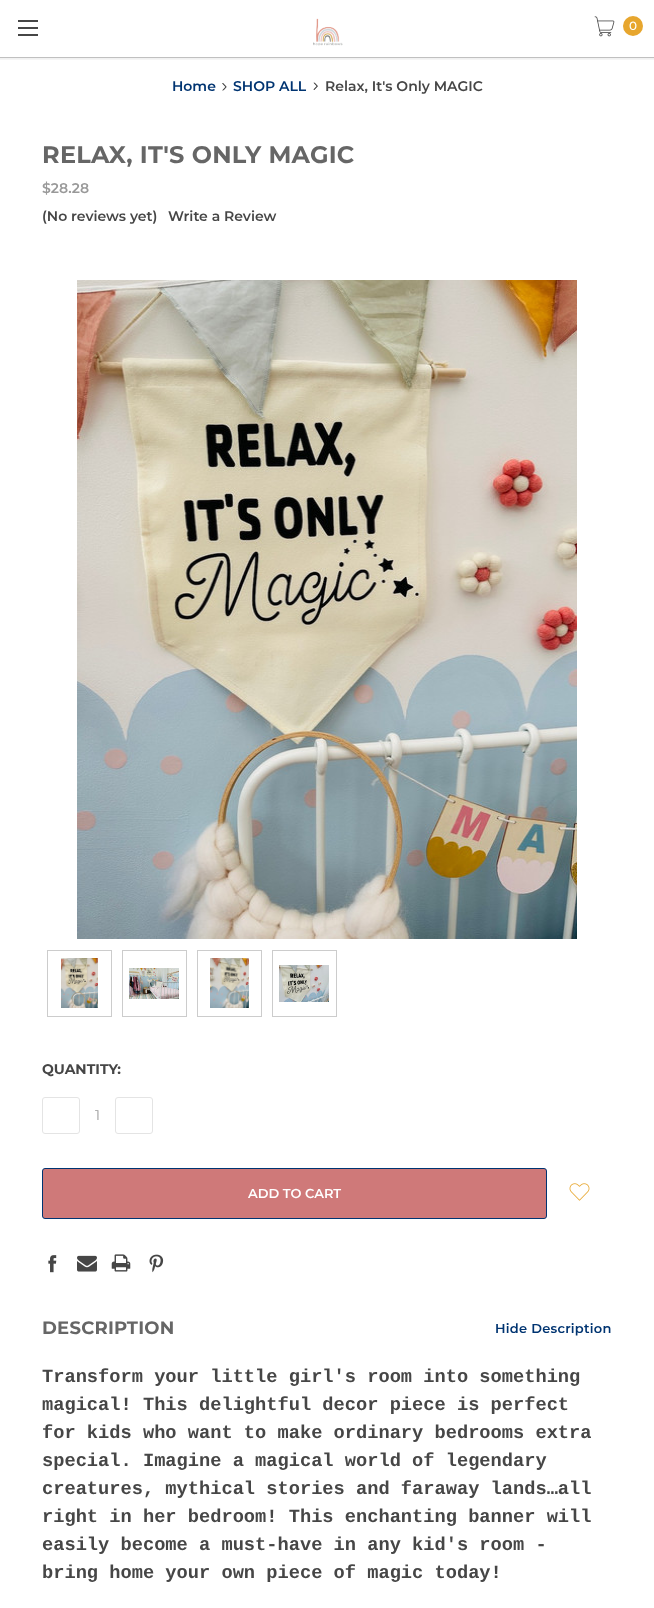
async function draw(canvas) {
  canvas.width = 654;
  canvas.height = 1608;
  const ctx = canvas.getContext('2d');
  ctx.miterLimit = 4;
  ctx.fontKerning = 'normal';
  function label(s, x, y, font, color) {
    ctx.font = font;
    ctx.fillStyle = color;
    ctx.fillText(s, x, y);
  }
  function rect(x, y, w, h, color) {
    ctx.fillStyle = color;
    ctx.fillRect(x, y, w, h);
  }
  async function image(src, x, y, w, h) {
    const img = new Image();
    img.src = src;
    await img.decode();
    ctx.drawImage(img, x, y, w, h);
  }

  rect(0, 0, 654, 1608, '#fff');
  rect(0, 57, 654, 1, '#ccc');
  ctx.save();
  ctx.beginPath();
  ctx.rect(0, 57, 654, 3);
  ctx.clip();
  ctx.fillStyle = '#0000000f';
  ctx.filter = 'blur(1px)';
  ctx.beginPath();
  ctx.rect(-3, -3, 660, 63);
  ctx.fill();
  ctx.filter = 'none';
  ctx.restore();
  rect(18, 27, 20, 2, '#464646');
  rect(18, 20, 20, 2, '#464646');
  rect(18, 34, 20, 2, '#464646');
  await image('assets/img1.png', 313, 18, 30, 28);
  await image('assets/img2.png', 594, 16, 21, 21);
  ctx.fillStyle = '#e7a62e';
  ctx.beginPath();
  ctx.arc(633, 26, 10, 0, 2 * Math.PI);
  ctx.fill();
  label('0', 629, 30, '500 12px Montserrat', '#fff');
  label('Home', 172, 91, '600 14px Montserrat', '#003471');
  await image('assets/img3.png', 222, 83, 5, 8);
  label('SHOP ALL', 233, 91, '600 14px Montserrat', '#003471');
  await image('assets/img4.png', 313, 82, 5, 8);
  label('Relax, It\'s Only MAGIC', 325, 91, '600 14px Montserrat', '#464646');
  ctx.letterSpacing = '0.25px';
  label('RELAX, IT\'S ONLY MAGIC', 42, 163, 'bold 24px Montserrat', '#666');
  ctx.letterSpacing = '0px';
  label('$28.28', 42, 193, '600 14px Montserrat', '#999');
  label('(No reviews yet)', 42, 221, '600 14px Montserrat', '#464646');
  label('Write a Review', 168, 221, '600 14px Montserrat', '#464646');
  await image('assets/img5.png', 77, 280, 500, 659);
  ctx.strokeStyle = '#ccc';
  ctx.strokeRect(47.5, 950.5, 64, 66);
  await image('assets/img6.png', 61, 958, 37, 50);
  ctx.strokeRect(122.5, 950.5, 64, 66);
  await image('assets/img7.png', 129, 968, 50, 31);
  ctx.strokeRect(197.5, 950.5, 64, 66);
  await image('assets/img8.png', 210, 958, 39, 50);
  ctx.strokeRect(272.5, 950.5, 64, 66);
  await image('assets/img9.png', 279, 965, 50, 37);
  label('QUANTITY:', 42, 1074, 'bold 14px Montserrat', '#464646');
  ctx.beginPath();
  ctx.roundRect(42.5, 1097.5, 37, 36, 2.5);
  ctx.strokeStyle = '#e4e4e4';
  ctx.stroke();
  label('1', 95, 1120, '14px Montserrat', '#999');
  ctx.beginPath();
  ctx.roundRect(115.5, 1097.5, 37, 36, 2.5);
  ctx.stroke();
  ctx.fillStyle = '#cf7979';
  ctx.beginPath();
  ctx.roundRect(42.5, 1168.5, 504, 50, 2.5);
  ctx.fill();
  ctx.strokeStyle = '#003471';
  ctx.stroke();
  label('ADD TO CART', 248, 1198, '600 13px Montserrat', '#fff');
  await image('assets/img10.png', 569, 1183, 21, 18);
  await image('assets/img11.png', 48, 1255, 9, 18);
  await image('assets/img12.png', 77, 1255, 20, 17);
  await image('assets/img13.png', 111, 1254, 20, 18);
  await image('assets/img14.png', 149, 1254, 15, 19);
  ctx.letterSpacing = '0.25px';
  label('DESCRIPTION', 42, 1334, 'bold 18px Montserrat', '#666');
  label('Hide Description', 495, 1333, '600 13px Montserrat', '#003471');
  ctx.letterSpacing = '0px';
  label('Transform your little girl\'s room into something', 42, 1382, 'bold 18.7px Liberation Mono', '#464646');
  label('magical! This delightful decor piece is perfect', 42, 1410, 'bold 18.7px Liberation Mono', '#464646');
  label('for kids who want to make ordinary bedrooms extra', 42, 1438, 'bold 18.7px Liberation Mono', '#464646');
  label('special. Imagine a magical world of legendary', 42, 1466, 'bold 18.7px Liberation Mono', '#464646');
  label('creatures, mythical stories and faraway lands…all', 42, 1494, 'bold 18.7px Liberation Mono', '#464646');
  label('right in her bedroom! This enchanting banner will', 42, 1522, 'bold 18.7px Liberation Mono', '#464646');
  label('easily become a must-have in any kid\'s room -', 42, 1550, 'bold 18.7px Liberation Mono', '#464646');
  label('bring home your own piece of magic today!', 42, 1578, 'bold 18.7px Liberation Mono', '#464646');
}

draw(document.querySelector('canvas'));
